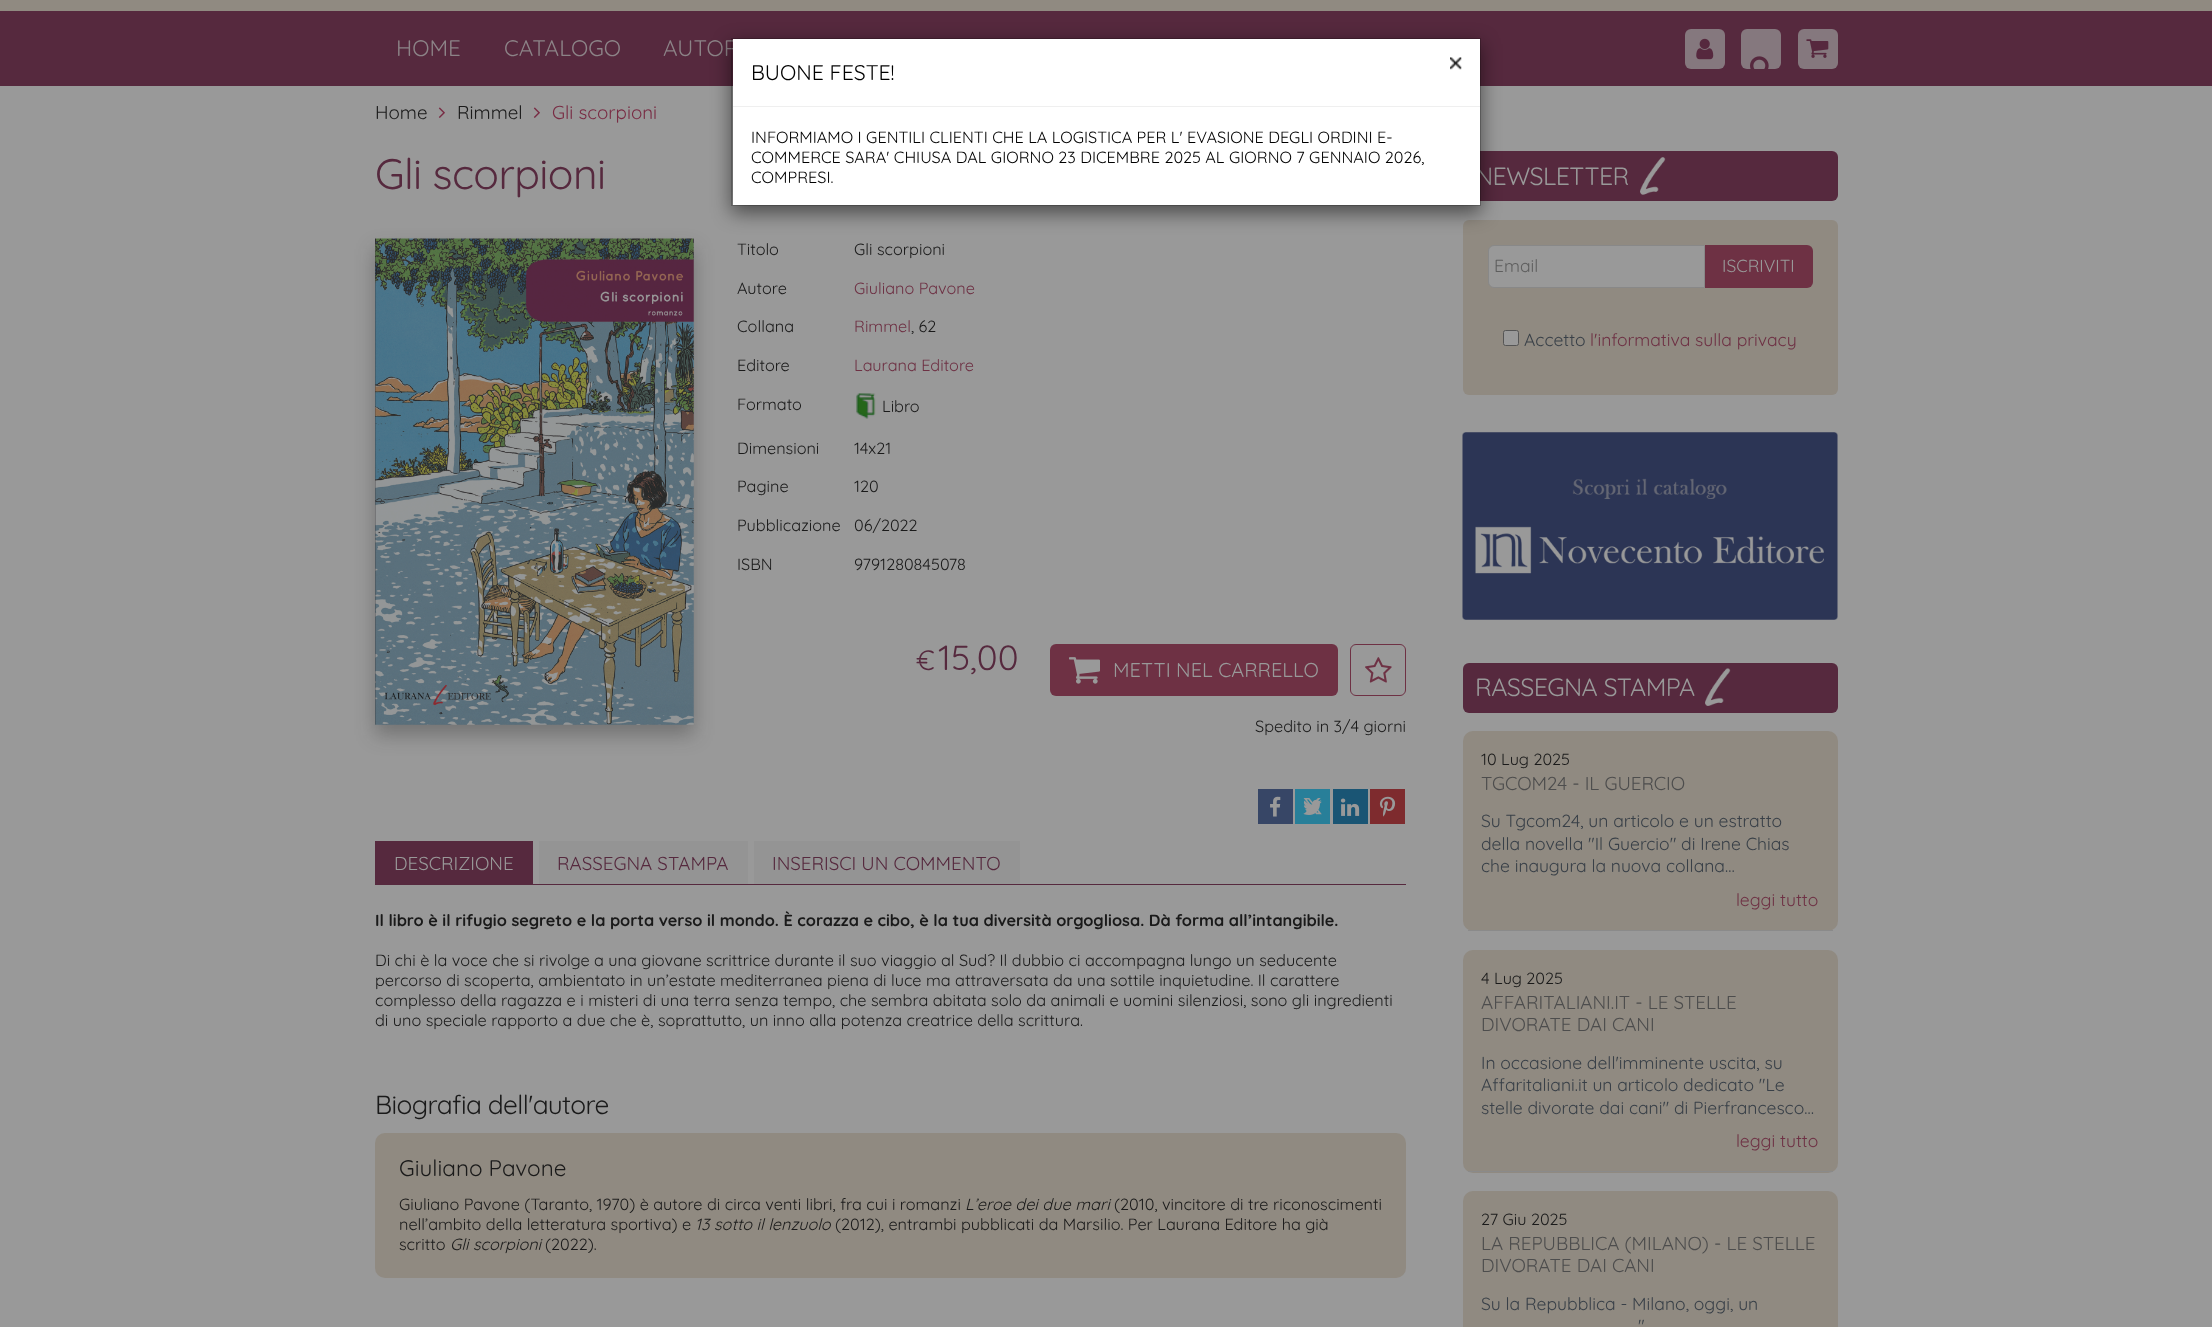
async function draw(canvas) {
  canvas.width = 2212;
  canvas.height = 1327;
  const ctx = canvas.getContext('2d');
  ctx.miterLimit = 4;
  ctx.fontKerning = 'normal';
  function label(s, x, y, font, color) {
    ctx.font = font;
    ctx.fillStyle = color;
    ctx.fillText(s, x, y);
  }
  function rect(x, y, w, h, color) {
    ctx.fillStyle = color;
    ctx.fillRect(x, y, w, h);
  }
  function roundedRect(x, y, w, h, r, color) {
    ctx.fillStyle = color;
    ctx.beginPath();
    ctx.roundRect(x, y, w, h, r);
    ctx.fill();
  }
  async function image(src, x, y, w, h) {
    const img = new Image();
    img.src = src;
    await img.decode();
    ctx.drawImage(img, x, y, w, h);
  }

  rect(0, 0, 2212, 1327, '#999');
  rect(0, 0, 2212, 11, '#908a81');
  rect(0, 11, 2212, 75, '#56293e');
  label('HOME', 396, 56, '22.5px Quicksand', '#8c8387');
  label('CATALOGO', 504, 56, '22.5px Quicksand', '#8c8387');
  label('AUTOR', 663, 56, '22.5px Quicksand', '#8c8387');
  roundedRect(1685, 29, 40, 40, 6, '#85787e');
  await image('assets/img1.png', 1696, 38, 18, 22);
  roundedRect(1741, 29, 40, 40, 6, '#85787e');
  await image('assets/img2.png', 1750, 56, 19, 13);
  roundedRect(1798, 29, 40, 40, 6, '#85787e');
  await image('assets/img3.png', 1806, 39, 23, 19);
  label('Home', 375, 119, '18.75px Quicksand', '#1a1a1a');
  await image('assets/img4.png', 438, 107, 7, 11);
  label('Rimmel', 457, 119, '18.75px Quicksand', '#1a1a1a');
  await image('assets/img4.png', 533, 107, 7, 11);
  label('Gli scorpioni', 552, 119, '18.75px Quicksand', '#792c44');
  ctx.letterSpacing = '-0.6px';
  label('Gli scorpioni', 375, 189, '42.5px Quicksand', '#56293e');
  ctx.fillStyle = '#1a1a1a4d';
  ctx.filter = 'blur(9.5px)';
  ctx.beginPath();
  ctx.rect(375, 249, 319, 486);
  ctx.fill();
  ctx.filter = 'none';
  await image('assets/img5.png', 375, 238, 319, 487);
  ctx.letterSpacing = '0px';
  label('Titolo', 737, 255, '16.25px Quicksand', '#1a1a1a');
  label('Gli scorpioni', 854, 255, '16.25px Quicksand', '#1a1a1a');
  label('Autore', 737, 294, '16.25px Quicksand', '#1a1a1a');
  label('Giuliano Pavone', 854, 294, '16.25px Quicksand', '#6e3144');
  label('Collana', 737, 332, '16.25px Quicksand', '#1a1a1a');
  label('Rimmel', 854, 332, '16.25px Quicksand', '#6e3144');
  label(', 62', 911, 332, '16.25px Quicksand', '#1a1a1a');
  label('Editore', 737, 371, '16.25px Quicksand', '#1a1a1a');
  label('Laurana Editore', 854, 371, '16.25px Quicksand', '#6e3144');
  label('Formato', 737, 410, '16.25px Quicksand', '#1a1a1a');
  await image('assets/img6.png', 856, 393, 20, 26);
  label('Libro', 882, 412, '16.25px Quicksand', '#1a1a1a');
  label('Dimensioni', 737, 454, '16.25px Quicksand', '#1a1a1a');
  label('14x21', 854, 454, '16.25px Quicksand', '#1a1a1a');
  label('Pagine', 737, 492, '16.25px Quicksand', '#1a1a1a');
  label('120', 854, 492, '16.25px Quicksand', '#1a1a1a');
  label('Pubblicazione', 737, 531, '16.25px Quicksand', '#1a1a1a');
  label('06/2022', 854, 531, '16.25px Quicksand', '#1a1a1a');
  label('ISBN', 737, 570, '16.25px Quicksand', '#1a1a1a');
  label('9791280845078', 854, 570, '16.25px Quicksand', '#1a1a1a');
  label('€', 916, 670, '28px Quicksand', '#56293e');
  label('15,00', 938, 670, '35px Quicksand', '#56293e');
  roundedRect(1050, 644, 288, 52, 6, '#6e3144');
  await image('assets/img7.png', 1069, 657, 31, 27);
  label('METTI NEL CARRELLO', 1113, 677, '20px Quicksand', '#999');
  ctx.beginPath();
  ctx.roundRect(1350.5, 644.5, 55, 51, 5.5);
  ctx.strokeStyle = '#6e3144';
  ctx.stroke();
  await image('assets/img8.png', 1365, 657, 27, 26);
  label('Spedito in 3/4 giorni', 1255, 732, '16.25px Quicksand', '#1a1a1a');
  rect(1258, 789, 35, 35, '#374666');
  await image('assets/img9.png', 1270, 796, 11, 21);
  rect(1295, 789, 35, 35, '#287f99');
  await image('assets/img10.png', 1303, 798, 19, 17);
  await image('assets/img11.png', 1303, 799, 19, 16);
  rect(1333, 789, 35, 35, '#1a5574');
  await image('assets/img12.png', 1340, 798, 20, 18);
  rect(1370, 789, 35, 35, '#7e2b2e');
  await image('assets/img13.png', 1379, 796, 17, 21);
  rect(375, 884, 1031, 1, '#56293e');
  rect(375, 841, 158, 43, '#56293e');
  label('DESCRIZIONE', 394, 870, '18.75px Quicksand', '#999');
  rect(539, 841, 209, 43, '#949494');
  label('RASSEGNA STAMPA', 557, 870, '18.75px Quicksand', '#56293e');
  rect(754, 841, 266, 43, '#949494');
  label('INSERISCI UN COMMENTO', 772, 870, '18.75px Quicksand', '#56293e');
  label('Il libro è il rifugio segreto e la porta verso il mondo. È corazza e cibo, è la tua diversità orgogliosa. Dà forma all’intangibile.', 375, 926, 'bold 16.25px Quicksand', '#1a1a1a');
  label('Di chi è la voce che si rivolge a una giovane scrittrice durante il suo viaggio al Sud? Il dubbio ci accompagna lungo un seducente', 375, 966, '16.25px Quicksand', '#1a1a1a');
  label('percorso di scoperta, ambientato in un’estate mediterranea piena di luce ma attraversata da una sottile inquietudine. Il carattere', 375, 986, '16.25px Quicksand', '#1a1a1a');
  label('complesso della ragazza e i misteri di una terra senza tempo, che sembra abitata solo da animali e uomini silenziosi, sono gli ingredienti', 375, 1006, '16.25px Quicksand', '#1a1a1a');
  label('di uno speciale rapporto a due che è, soprattutto, un inno alla potenza creatrice della scrittura.', 375, 1026, '16.25px Quicksand', '#1a1a1a');
  ctx.letterSpacing = '-0.6px';
  label('Biografia dell\'autore', 375, 1114, '26.25px Quicksand', '#1a1a1a');
  roundedRect(375, 1133, 1031, 145, 10, '#908a81');
  ctx.letterSpacing = '0px';
  label('Giuliano Pavone', 399, 1176, '22.5px Quicksand', '#1a1a1a');
  label('Giuliano Pavone (Taranto, 1970) è autore di circa venti libri, fra cui i romanzi', 399, 1210, '16.25px Quicksand', '#1a1a1a');
  label('L’eroe dei due mari', 965, 1210, 'italic 16.25px Quicksand', '#1a1a1a');
  label('(2010, vincitore di tre riconoscimenti', 1114, 1210, '16.25px Quicksand', '#1a1a1a');
  label('nell’ambito della letteratura sportiva) e', 399, 1230, '16.25px Quicksand', '#1a1a1a');
  label('13 sotto il lenzuolo', 695, 1230, 'italic 16.25px Quicksand', '#1a1a1a');
  label('(2012), entrambi pubblicati da Marsilio. Per Laurana Editore ha già', 835, 1230, '16.25px Quicksand', '#1a1a1a');
  label('scritto', 399, 1250, '16.25px Quicksand', '#1a1a1a');
  label('Gli scorpioni', 450, 1250, 'italic 16.25px Quicksand', '#1a1a1a');
  label('(2022).', 545, 1250, '16.25px Quicksand', '#1a1a1a');
  roundedRect(1463, 151, 375, 50, 6, '#56293e');
  ctx.letterSpacing = '-0.6px';
  label('NEWSLETTER', 1475, 185, '25px Quicksand', '#999');
  await image('assets/img14.png', 1640, 157, 26, 38);
  roundedRect(1463, 220, 375, 175, 6, '#908a81');
  ctx.fillStyle = '#999';
  ctx.beginPath();
  ctx.roundRect(1488.5, 245.5, 216, 42, [5.5, 0, 0, 5.5]);
  ctx.fill();
  ctx.strokeStyle = '#888';
  ctx.stroke();
  ctx.letterSpacing = '0px';
  label('Email', 1494, 272, '17.5px Quicksand', '#5e5e5e');
  ctx.fillStyle = '#6e3144';
  ctx.beginPath();
  ctx.roundRect(1705, 245, 108, 43, [0, 6, 6, 0]);
  ctx.fill();
  label('ISCRIVITI', 1722, 272, '17.5px Quicksand', '#999');
  ctx.beginPath();
  ctx.roundRect(1503.5, 330.5, 15, 15, 2);
  ctx.fill();
  ctx.strokeStyle = '#555';
  ctx.stroke();
  label('Accetto', 1524, 346, '17.5px Quicksand', '#394048');
  label('l\'informativa sulla privacy', 1590, 346, '17.5px Quicksand', '#6e3144');
  await image('assets/img15.png', 1462, 432, 376, 188);
  roundedRect(1463, 663, 375, 50, 6, '#56293e');
  ctx.letterSpacing = '-0.6px';
  label('RASSEGNA STAMPA', 1475, 696, '25px Quicksand', '#999');
  await image('assets/img16.png', 1705, 668, 26, 38);
  roundedRect(1463, 731, 375, 200, 10, '#908a81');
  rect(1468, 930, 365, 1, '#8a8a8a');
  ctx.letterSpacing = '0px';
  label('10 Lug 2025', 1481, 765, '16.25px Quicksand', '#1a1a1a');
  label('TGCOM24 - IL GUERCIO', 1481, 790, '18.75px Quicksand', '#4d4d4d');
  label('Su Tgcom24, un articolo e un estratto', 1481, 827, '17.5px Quicksand', '#394048');
  label('della novella "Il Guercio" di Irene Chias', 1481, 850, '17.5px Quicksand', '#394048');
  label('che inaugura la nuova collana…', 1481, 872, '17.5px Quicksand', '#394048');
  label('leggi tutto', 1736, 906, '17.5px Quicksand', '#6e3144');
  roundedRect(1463, 950, 375, 223, 10, '#908a81');
  rect(1468, 1171, 365, 1, '#8a8a8a');
  label('4 Lug 2025', 1481, 984, '16.25px Quicksand', '#1a1a1a');
  label('AFFARITALIANI.IT - LE STELLE', 1481, 1009, '18.75px Quicksand', '#4d4d4d');
  label('DIVORATE DAI CANI', 1481, 1031, '18.75px Quicksand', '#4d4d4d');
  label('In occasione dell\'imminente uscita, su', 1481, 1069, '17.5px Quicksand', '#394048');
  label('Affaritaliani.it un articolo dedicato "Le', 1481, 1091, '17.5px Quicksand', '#394048');
  label('stelle divorate dai cani" di Pierfrancesco…', 1481, 1114, '17.5px Quicksand', '#394048');
  label('leggi tutto', 1736, 1147, '17.5px Quicksand', '#6e3144');
  roundedRect(1463, 1191, 375, 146, 10, '#908a81');
  label('27 Giu 2025', 1481, 1225, '16.25px Quicksand', '#1a1a1a');
  label('LA REPUBBLICA (MILANO) - LE STELLE', 1481, 1250, '18.75px Quicksand', '#4d4d4d');
  label('DIVORATE DAI CANI', 1481, 1272, '18.75px Quicksand', '#4d4d4d');
  label('Su la Repubblica - Milano, oggi, un', 1481, 1310, '17.5px Quicksand', '#394048');
  label('"', 1638, 1332, '17.5px Quicksand', '#394048');
  ctx.fillStyle = '#00000080';
  ctx.filter = 'blur(9.5px)';
  ctx.beginPath();
  ctx.rect(731, 44, 750, 169);
  ctx.fill();
  ctx.filter = 'none';
  rect(733, 39, 747, 166, '#fff');
  ctx.strokeStyle = '#00000033';
  ctx.strokeRect(731.5, 38.5, 749, 167);
  rect(733, 106, 747, 1, '#efefef');
  label('BUONE FESTE!', 751, 80, '21.25px Quicksand', '#000');
  await image('assets/img17.png', 1450, 57, 12, 13);
  label('INFORMIAMO I GENTILI CLIENTI CHE LA LOGISTICA PER L\' EVASIONE DEGLI ORDINI E-', 751, 143, '16.25px Quicksand', '#000');
  label('COMMERCE SARA\' CHIUSA DAL GIORNO 23 DICEMBRE 2025 AL GIORNO 7 GENNAIO 2026,', 751, 163, '16.25px Quicksand', '#000');
  label('COMPRESI.', 751, 183, '16.25px Quicksand', '#000');
}

draw(document.querySelector('canvas'));
